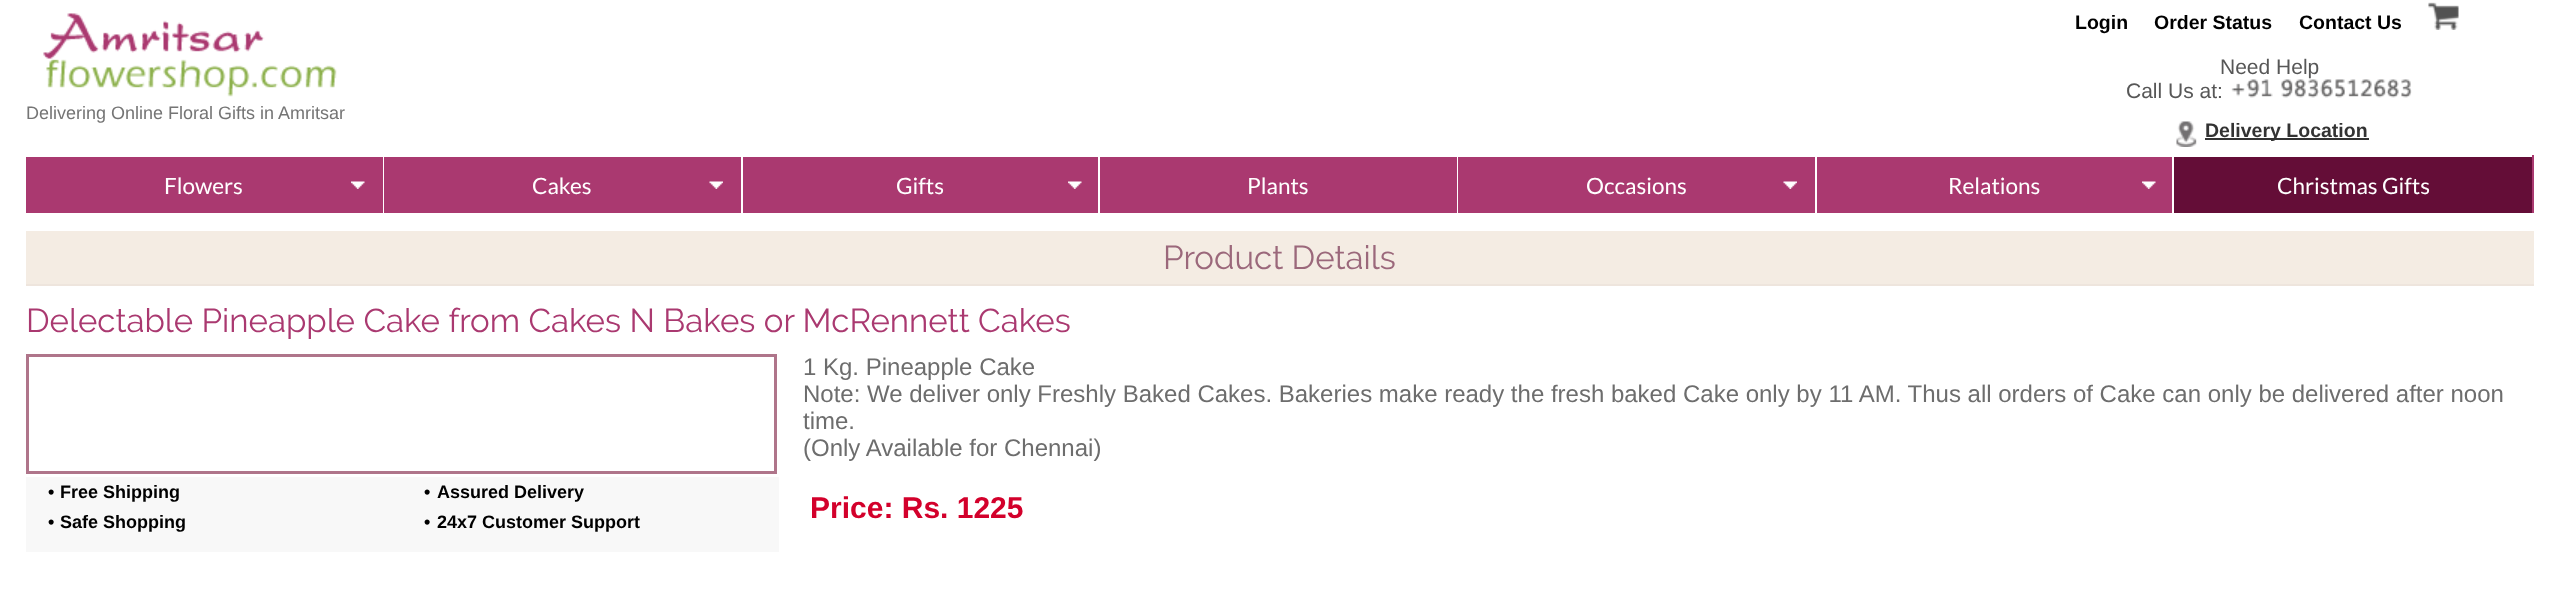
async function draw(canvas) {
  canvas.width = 2558;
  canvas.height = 598;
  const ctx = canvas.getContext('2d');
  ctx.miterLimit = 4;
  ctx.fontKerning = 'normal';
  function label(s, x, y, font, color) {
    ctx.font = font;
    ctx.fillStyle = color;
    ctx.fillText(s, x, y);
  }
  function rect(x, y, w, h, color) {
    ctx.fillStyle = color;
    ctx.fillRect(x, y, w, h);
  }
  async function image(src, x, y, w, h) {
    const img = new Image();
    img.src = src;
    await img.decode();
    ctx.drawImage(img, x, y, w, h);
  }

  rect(0, 0, 2558, 598, '#fff');
  await image('assets/img1.png', 43, 13, 294, 84);
  label('Delivering Online Floral Gifts in Amritsar', 26, 119, '18px Liberation Sans', '#757575');
  label('Login', 2075, 29, 'bold 19.5px Liberation Sans', '#000');
  label('Order Status', 2154, 29, 'bold 19.5px Liberation Sans', '#000');
  label('Contact Us', 2299, 29, 'bold 19.5px Liberation Sans', '#000');
  await image('assets/img2.png', 2428, 2, 31, 28);
  label('Need Help', 2220, 74, '21px Liberation Sans', '#575757');
  label('Call Us at:', 2126, 98, '21px Liberation Sans', '#575757');
  await image('assets/img3.png', 2231, 79, 181, 19);
  await image('assets/img4.png', 2176, 121, 21, 26);
  rect(2205, 138, 164, 2, '#333');
  label('Delivery Location', 2205, 137, 'bold 19.5px Liberation Sans', '#333');
  rect(26, 155, 2508, 58, '#aa3970');
  rect(26, 155, 2506, 2, '#fff');
  await image('assets/img5.png', 351, 181, 14, 8);
  rect(383, 156, 1, 57, '#fff');
  label('Flowers', 164, 194, '22.5px Lato', '#fff');
  await image('assets/img6.png', 709, 181, 14, 8);
  rect(741, 156, 2, 57, '#fff');
  label('Cakes', 532, 194, '22.5px Lato', '#fff');
  await image('assets/img5.png', 1068, 181, 14, 8);
  rect(1098, 156, 2, 57, '#fff');
  label('Gifts', 896, 194, '22.5px Lato', '#fff');
  rect(1457, 156, 1, 57, '#fff');
  label('Plants', 1247, 194, '22.5px Lato', '#fff');
  await image('assets/img7.png', 1783, 181, 14, 8);
  rect(1815, 156, 2, 57, '#fff');
  label('Occasions', 1586, 194, '22.5px Lato', '#fff');
  await image('assets/img8.png', 2142, 181, 14, 8);
  rect(2172, 156, 2, 57, '#fff');
  label('Relations', 1948, 194, '22.5px Lato', '#fff');
  rect(2174, 157, 358, 56, '#640d37');
  label('Christmas Gifts', 2277, 194, '22.5px Lato', '#fff');
  rect(26, 231, 2508, 53, '#f4ece3');
  rect(26, 284, 2508, 2, '#eee5dd');
  label('Product Details', 1163, 269, '33px Raleway', '#9b687b');
  label('Delectable Pineapple Cake from Cakes N Bakes or McRennett Cakes', 26, 332, '33px Raleway', '#aa3970');
  ctx.strokeStyle = '#af758a';
  ctx.lineWidth = 3;
  ctx.strokeRect(27.5, 355.5, 748, 117);
  rect(26, 477, 753, 75, '#f8f8f8');
  label('•', 48, 498, 'bold 18px Liberation Sans', '#000');
  label('Free Shipping', 60, 498, 'bold 18px Liberation Sans', '#000');
  label('•', 424, 498, 'bold 18px Liberation Sans', '#000');
  label('Assured Delivery', 437, 498, 'bold 18px Liberation Sans', '#000');
  label('•', 48, 528, 'bold 18px Liberation Sans', '#000');
  label('Safe Shopping', 60, 528, 'bold 18px Liberation Sans', '#000');
  label('•', 424, 528, 'bold 18px Liberation Sans', '#000');
  label('24x7 Customer Support', 437, 528, 'bold 18px Liberation Sans', '#000');
  label('1 Kg. Pineapple Cake', 803, 375, '24px Liberation Sans', '#6d6d6d');
  label('Note: We deliver only Freshly Baked Cakes. Bakeries make ready the fresh baked Cake only by 11 AM. Thus all orders of Cake can only be delivered after noon', 803, 402, '24px Liberation Sans', '#6d6d6d');
  label('time.', 803, 429, '24px Liberation Sans', '#6d6d6d');
  label('(Only Available for Chennai)', 803, 456, '24px Liberation Sans', '#6d6d6d');
  label('Price: Rs. 1225', 810, 518, 'bold 30px Liberation Sans', '#d3002b');
}

draw(document.querySelector('canvas'));
